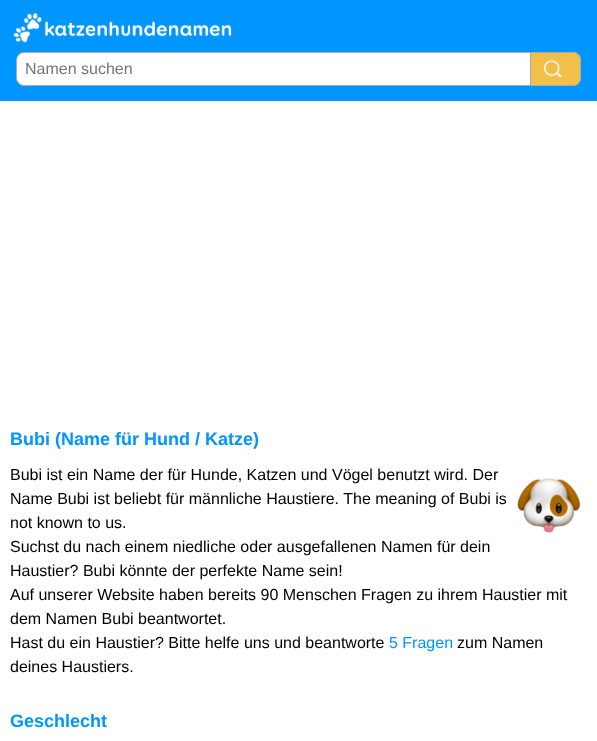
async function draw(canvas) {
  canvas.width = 597;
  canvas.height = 741;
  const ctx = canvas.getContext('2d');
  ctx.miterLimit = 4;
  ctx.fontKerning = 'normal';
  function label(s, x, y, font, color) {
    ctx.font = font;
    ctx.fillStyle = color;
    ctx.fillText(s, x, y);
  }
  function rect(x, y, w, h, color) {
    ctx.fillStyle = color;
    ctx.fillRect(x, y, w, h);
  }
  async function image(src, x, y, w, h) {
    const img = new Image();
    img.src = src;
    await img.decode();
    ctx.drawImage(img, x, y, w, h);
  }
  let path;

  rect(0, 0, 597, 741, '#fff');
  rect(0, 0, 597, 101, '#0096ff');
  await image('assets/img1.png', 13, 13, 219, 30);
  ctx.fillStyle = '#fff';
  ctx.beginPath();
  ctx.roundRect(16.5, 52.5, 514, 33, [7.5, 0, 0, 7.5]);
  ctx.fill();
  ctx.strokeStyle = '#aaa';
  ctx.stroke();
  label('Namen suchen', 25, 74, '16px Liberation Sans', '#757575');
  ctx.fillStyle = '#f2c049';
  ctx.beginPath();
  ctx.roundRect(531, 52, 50, 34, [0, 8, 8, 0]);
  ctx.fill();
  await image('assets/img2.png', 544, 60, 18, 18);
  ctx.fillStyle = '#aaa';
  path = new Path2D('M531 52H573C577 52 581 56 581 60V78C581 82 577 86 573 86H531ZM531 53H573C577 53 580 56 580 60V78C580 82 577 85 573 85H531Z');
  ctx.fill(path, 'evenodd');
  label('Bubi (Name für Hund / Katze)', 10, 445, 'bold 18px Liberation Sans', '#0096ff');
  label('Bubi ist ein Name der für Hunde, Katzen und Vögel benutzt wird. Der', 10, 480, '16px Liberation Sans', '#000');
  await image('assets/img3.png', 517, 469, 64, 64);
  label('Name Bubi ist beliebt für männliche Haustiere. The meaning of Bubi is', 10, 504, '16px Liberation Sans', '#000');
  label('not known to us.', 10, 528, '16px Liberation Sans', '#000');
  label('Suchst du nach einem niedliche oder ausgefallenen Namen für dein', 10, 552, '16px Liberation Sans', '#000');
  label('Haustier? Bubi könnte der perfekte Name sein!', 10, 576, '16px Liberation Sans', '#000');
  label('Auf unserer Website haben bereits 90 Menschen Fragen zu ihrem Haustier mit', 10, 600, '16px Liberation Sans', '#000');
  label('dem Namen Bubi beantwortet.', 10, 624, '16px Liberation Sans', '#000');
  label('Hast du ein Haustier? Bitte helfe uns und beantworte', 10, 648, '16px Liberation Sans', '#000');
  label('5 Fragen', 389, 648, '16px Liberation Sans', '#0096ff');
  label('zum Namen', 457, 648, '16px Liberation Sans', '#000');
  label('deines Haustiers.', 10, 672, '16px Liberation Sans', '#000');
  label('Geschlecht', 10, 727, 'bold 18px Liberation Sans', '#0096ff');
}

draw(document.querySelector('canvas'));
